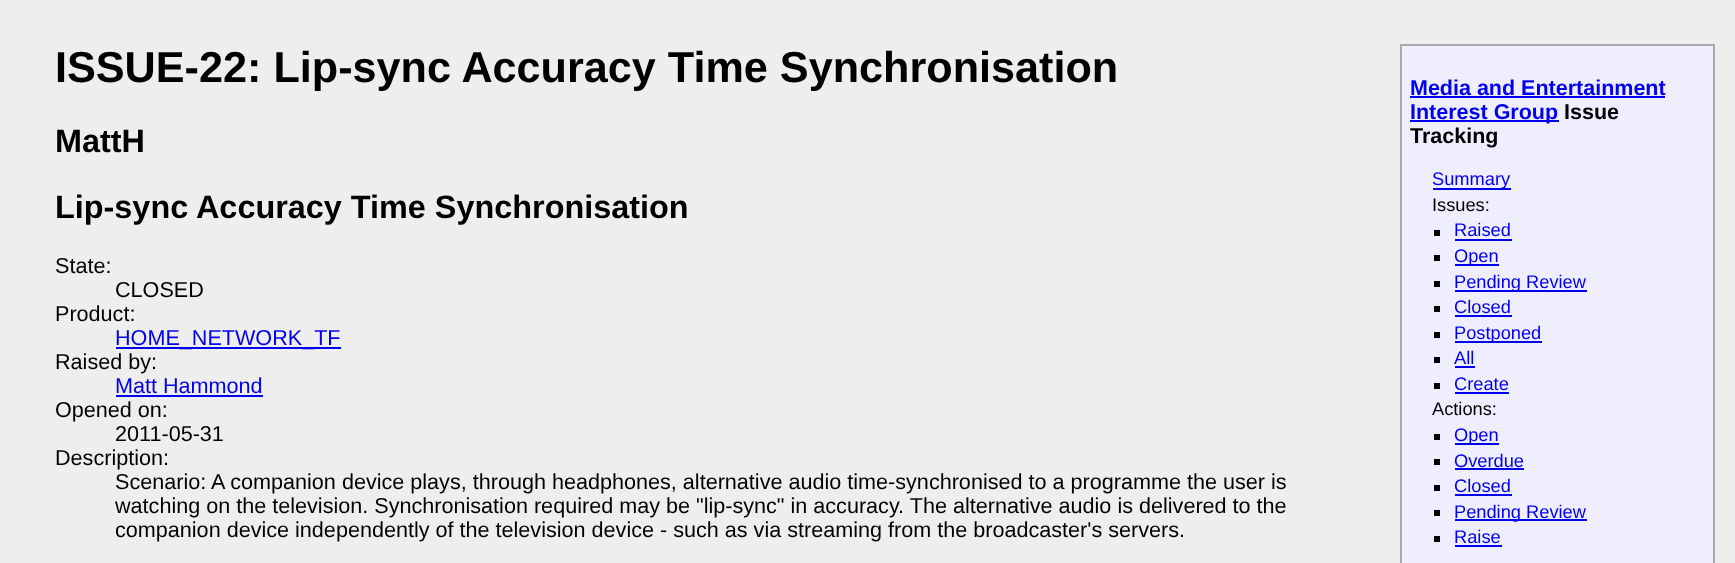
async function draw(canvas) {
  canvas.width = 1735;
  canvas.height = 563;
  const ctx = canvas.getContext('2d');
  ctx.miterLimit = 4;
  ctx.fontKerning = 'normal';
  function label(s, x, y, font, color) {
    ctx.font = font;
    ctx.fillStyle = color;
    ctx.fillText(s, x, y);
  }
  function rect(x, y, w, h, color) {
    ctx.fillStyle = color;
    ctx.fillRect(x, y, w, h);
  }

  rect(0, 0, 1735, 563, '#eee');
  label('ISSUE-22: Lip-sync Accuracy Time Synchronisation', 55, 82, 'bold 43.2px Liberation Sans', '#000');
  label('MattH', 55, 152, 'bold 32.4px Liberation Sans', '#000');
  label('Lip-sync Accuracy Time Synchronisation', 55, 218, 'bold 32.4px Liberation Sans', '#000');
  label('State:', 55, 273, '21.6px Liberation Sans', '#000');
  label('CLOSED', 115, 297, '21.6px Liberation Sans', '#000');
  label('Product:', 55, 321, '21.6px Liberation Sans', '#000');
  rect(116, 347, 225, 2, '#00e');
  label('HOME_NETWORK_TF', 115, 345, '21.6px Liberation Sans', '#00e');
  label('Raised by:', 55, 369, '21.6px Liberation Sans', '#000');
  label('Matt Hammond', 115, 393, '21.6px Liberation Sans', '#00e');
  rect(116, 395, 147, 2, '#00e');
  label('Opened on:', 55, 417, '21.6px Liberation Sans', '#000');
  label('2011-05-31', 115, 441, '21.6px Liberation Sans', '#000');
  label('Description:', 55, 465, '21.6px Liberation Sans', '#000');
  label('Scenario: A companion device plays, through headphones, alternative audio time-synchronised to a programme the user is', 115, 489, '21.6px Liberation Sans', '#000');
  label('watching on the television. Synchronisation required may be "lip-sync" in accuracy. The alternative audio is delivered to the', 115, 513, '21.6px Liberation Sans', '#000');
  label('companion device independently of the television device - such as via streaming from the broadcaster\'s servers.', 115, 537, '21.6px Liberation Sans', '#000');
  ctx.fillStyle = '#eef';
  ctx.beginPath();
  ctx.rect(1401, 45, 313, 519);
  ctx.fill();
  ctx.strokeStyle = '#aaa';
  ctx.lineWidth = 2;
  ctx.stroke();
  label('Media and Entertainment', 1410, 95, 'bold 21.5px Liberation Sans', '#00e');
  rect(1410, 96, 255, 2, '#00e');
  rect(1410, 120, 149, 2, '#00e');
  label('Interest Group', 1410, 119, 'bold 21.5px Liberation Sans', '#00e');
  label('Issue', 1564, 119, 'bold 21.5px Liberation Sans', '#000');
  label('Tracking', 1410, 143, 'bold 21.5px Liberation Sans', '#000');
  rect(1433, 188, 78, 2, '#00e');
  label('Summary', 1432, 185, '18.25px Liberation Sans', '#00e');
  label('Issues:', 1432, 211, '18.25px Liberation Sans', '#000');
  rect(1434, 230, 6, 6, '#000');
  label('Raised', 1454, 236, '18.25px Liberation Sans', '#00e');
  rect(1455, 239, 57, 2, '#00e');
  rect(1434, 255, 6, 6, '#000');
  rect(1455, 264, 44, 2, '#00e');
  label('Open', 1454, 262, '18.25px Liberation Sans', '#00e');
  rect(1434, 281, 6, 6, '#000');
  rect(1455, 290, 132, 2, '#00e');
  label('Pending Review', 1454, 288, '18.25px Liberation Sans', '#00e');
  rect(1434, 306, 6, 6, '#000');
  label('Closed', 1454, 313, '18.25px Liberation Sans', '#00e');
  rect(1455, 315, 57, 2, '#00e');
  rect(1434, 332, 6, 6, '#000');
  rect(1455, 341, 87, 2, '#00e');
  label('Postponed', 1454, 339, '18.25px Liberation Sans', '#00e');
  rect(1434, 357, 6, 6, '#000');
  label('All', 1454, 364, '18.25px Liberation Sans', '#00e');
  rect(1455, 366, 20, 2, '#00e');
  rect(1434, 383, 6, 6, '#000');
  label('Create', 1454, 390, '18.25px Liberation Sans', '#00e');
  rect(1455, 392, 54, 2, '#00e');
  label('Actions:', 1432, 415, '18.25px Liberation Sans', '#000');
  rect(1434, 434, 6, 6, '#000');
  rect(1455, 443, 44, 2, '#00e');
  label('Open', 1454, 441, '18.25px Liberation Sans', '#00e');
  rect(1434, 459, 6, 6, '#000');
  label('Overdue', 1454, 467, '18.25px Liberation Sans', '#00e');
  rect(1455, 468, 69, 2, '#00e');
  rect(1434, 485, 6, 6, '#000');
  label('Closed', 1454, 492, '18.25px Liberation Sans', '#00e');
  rect(1455, 494, 57, 2, '#00e');
  rect(1434, 510, 6, 6, '#000');
  rect(1455, 519, 132, 2, '#00e');
  label('Pending Review', 1454, 518, '18.25px Liberation Sans', '#00e');
  rect(1434, 536, 6, 6, '#000');
  label('Raise', 1454, 543, '18.25px Liberation Sans', '#00e');
  rect(1455, 545, 47, 2, '#00e');
}

draw(document.querySelector('canvas'));
